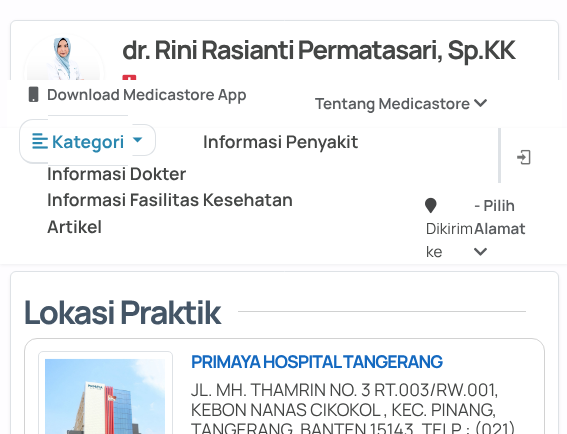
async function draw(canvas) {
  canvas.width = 567;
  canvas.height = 434;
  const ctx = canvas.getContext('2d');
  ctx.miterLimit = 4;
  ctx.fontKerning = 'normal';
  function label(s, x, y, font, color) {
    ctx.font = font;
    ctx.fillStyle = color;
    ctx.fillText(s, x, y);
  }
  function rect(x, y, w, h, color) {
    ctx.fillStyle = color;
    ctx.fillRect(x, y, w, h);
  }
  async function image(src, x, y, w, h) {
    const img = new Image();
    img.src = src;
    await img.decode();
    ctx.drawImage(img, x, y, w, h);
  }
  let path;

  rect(0, 0, 567, 434, '#fefdff');
  ctx.fillStyle = '#21252912';
  ctx.filter = 'blur(1.5px)';
  ctx.beginPath();
  ctx.roundRect(10, 21, 549, 108, 6);
  ctx.fill();
  ctx.filter = 'none';
  ctx.fillStyle = '#fff';
  ctx.beginPath();
  ctx.roundRect(10.5, 20.5, 548, 107, 5.5);
  ctx.fill();
  ctx.strokeStyle = '#dee2e6';
  ctx.stroke();
  ctx.fillStyle = '#21252912';
  ctx.filter = 'blur(1.5px)';
  ctx.beginPath();
  ctx.roundRect(24, 35, 80, 80, 40);
  ctx.fill();
  ctx.filter = 'none';
  ctx.fillStyle = '#fff';
  ctx.beginPath();
  ctx.arc(64, 74, 40, 0, 2 * Math.PI);
  ctx.fill();
  await image('assets/img1.png', 27, 37, 73, 43);
  ctx.letterSpacing = '-1.3px';
  label('dr. Rini Rasianti Permatasari, Sp.KK', 122, 59, 'bold 25.75px Manrope', '#444645');
  await image('assets/img2.png', 122, 74, 15, 6);
  ctx.fillStyle = '#21252912';
  ctx.filter = 'blur(1.5px)';
  ctx.beginPath();
  ctx.roundRect(10, 273, 549, 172, 6);
  ctx.fill();
  ctx.filter = 'none';
  ctx.fillStyle = '#fff';
  ctx.beginPath();
  ctx.roundRect(10.5, 271.5, 548, 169, 5.5);
  ctx.fill();
  ctx.stroke();
  ctx.letterSpacing = '-1.6px';
  label('Lokasi Praktik', 23, 324, 'bold 32.5px Manrope', '#456');
  rect(238, 311, 288, 1, '#d0d1d1');
  ctx.beginPath();
  ctx.roundRect(24.5, 338.5, 520, 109, 12.5);
  ctx.strokeStyle = '#d2d2d2';
  ctx.stroke();
  ctx.beginPath();
  ctx.roundRect(38.5, 351.5, 134, 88, 4.5);
  ctx.strokeStyle = '#dee2e6';
  ctx.stroke();
  await image('assets/img3.png', 45, 358, 120, 76);
  ctx.letterSpacing = '-0.9px';
  label('PRIMAYA HOSPITAL TANGERANG', 191, 368, 'bold 17.6px Manrope', '#1469c0');
  ctx.letterSpacing = '0px';
  label('JL. MH. THAMRIN NO. 3 RT.003/RW.001,', 191, 396, '17.5px Manrope', '#444645');
  label('KEBON NANAS CIKOKOL , KEC. PINANG,', 191, 416, '17.5px Manrope', '#444645');
  label('TANGERANG, BANTEN 15143, TELP : (021)', 191, 436, '17.5px Manrope', '#444645');
  rect(7, 80, 555, 48, '#fff');
  await image('assets/img4.png', 28, 86, 11, 16);
  label('Download Medicastore App', 47, 100, '600 15.25px Manrope', '#595c5f');
  label('Tentang Medicastore', 315, 109, '600 15.25px Manrope', '#595c5f');
  await image('assets/img5.png', 474, 99, 13, 8);
  ctx.fillStyle = '#21252912';
  ctx.filter = 'blur(1.5px)';
  ctx.beginPath();
  ctx.rect(0, 129, 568, 136);
  ctx.fill();
  ctx.filter = 'none';
  rect(0, 128, 567, 136, '#fff');
  ctx.fillStyle = '#dee2e6';
  path = new Path2D('M33 119H48V164H33C25 164 19 157 19 149V133C19 125 25 119 33 119ZM33 120H48V162H33C26 162 20 157 20 149V133C20 126 26 120 33 120Z');
  ctx.fill(path, 'evenodd');
  rect(48, 115, 80, 1, '#dee2e6');
  rect(48, 165, 80, 1, '#dee2e6');
  path = new Path2D('M132.5 124H144.5C151 124 156 129 156 135.5V144.5C156 151 151 156 144.5 156H132.5ZM132.5 125H144.5C150 125 155 130 155 135.5V144.5C155 150 150 155 144.5 155H132.5Z');
  ctx.fill(path, 'evenodd');
  await image('assets/img6.png', 32, 133, 16, 16);
  label('Kategori', 52, 148, 'bold 17.5px "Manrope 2"', '#2a87af');
  path = new Path2D('M132.5 137.5H142.5L137.5 142.5Z');
  ctx.fill(path);
  label('Informasi Penyakit', 203, 148, '600 17.5px Manrope', '#444645');
  label('Informasi Dokter', 47, 180, '600 17.5px Manrope', '#444645');
  label('Informasi Fasilitas Kesehatan', 47, 206, '600 17.5px Manrope', '#444645');
  label('Artikel', 47, 233, '600 17.5px Manrope', '#444645');
  rect(498, 128, 3, 55, '#dee2e6');
  await image('assets/img7.png', 517, 149, 14, 16);
  label('- Pilih', 474, 211, '600 15.25px Manrope', '#595c5f');
  label('Alamat', 474, 234, '600 15.25px Manrope', '#595c5f');
  await image('assets/img8.png', 474, 247, 13, 9);
  await image('assets/img9.png', 425, 197, 12, 17);
  label('Dikirim', 426, 234, '15.25px Manrope', '#444645');
  label('ke', 426, 257, '15.25px Manrope', '#444645');
}

draw(document.querySelector('canvas'));
